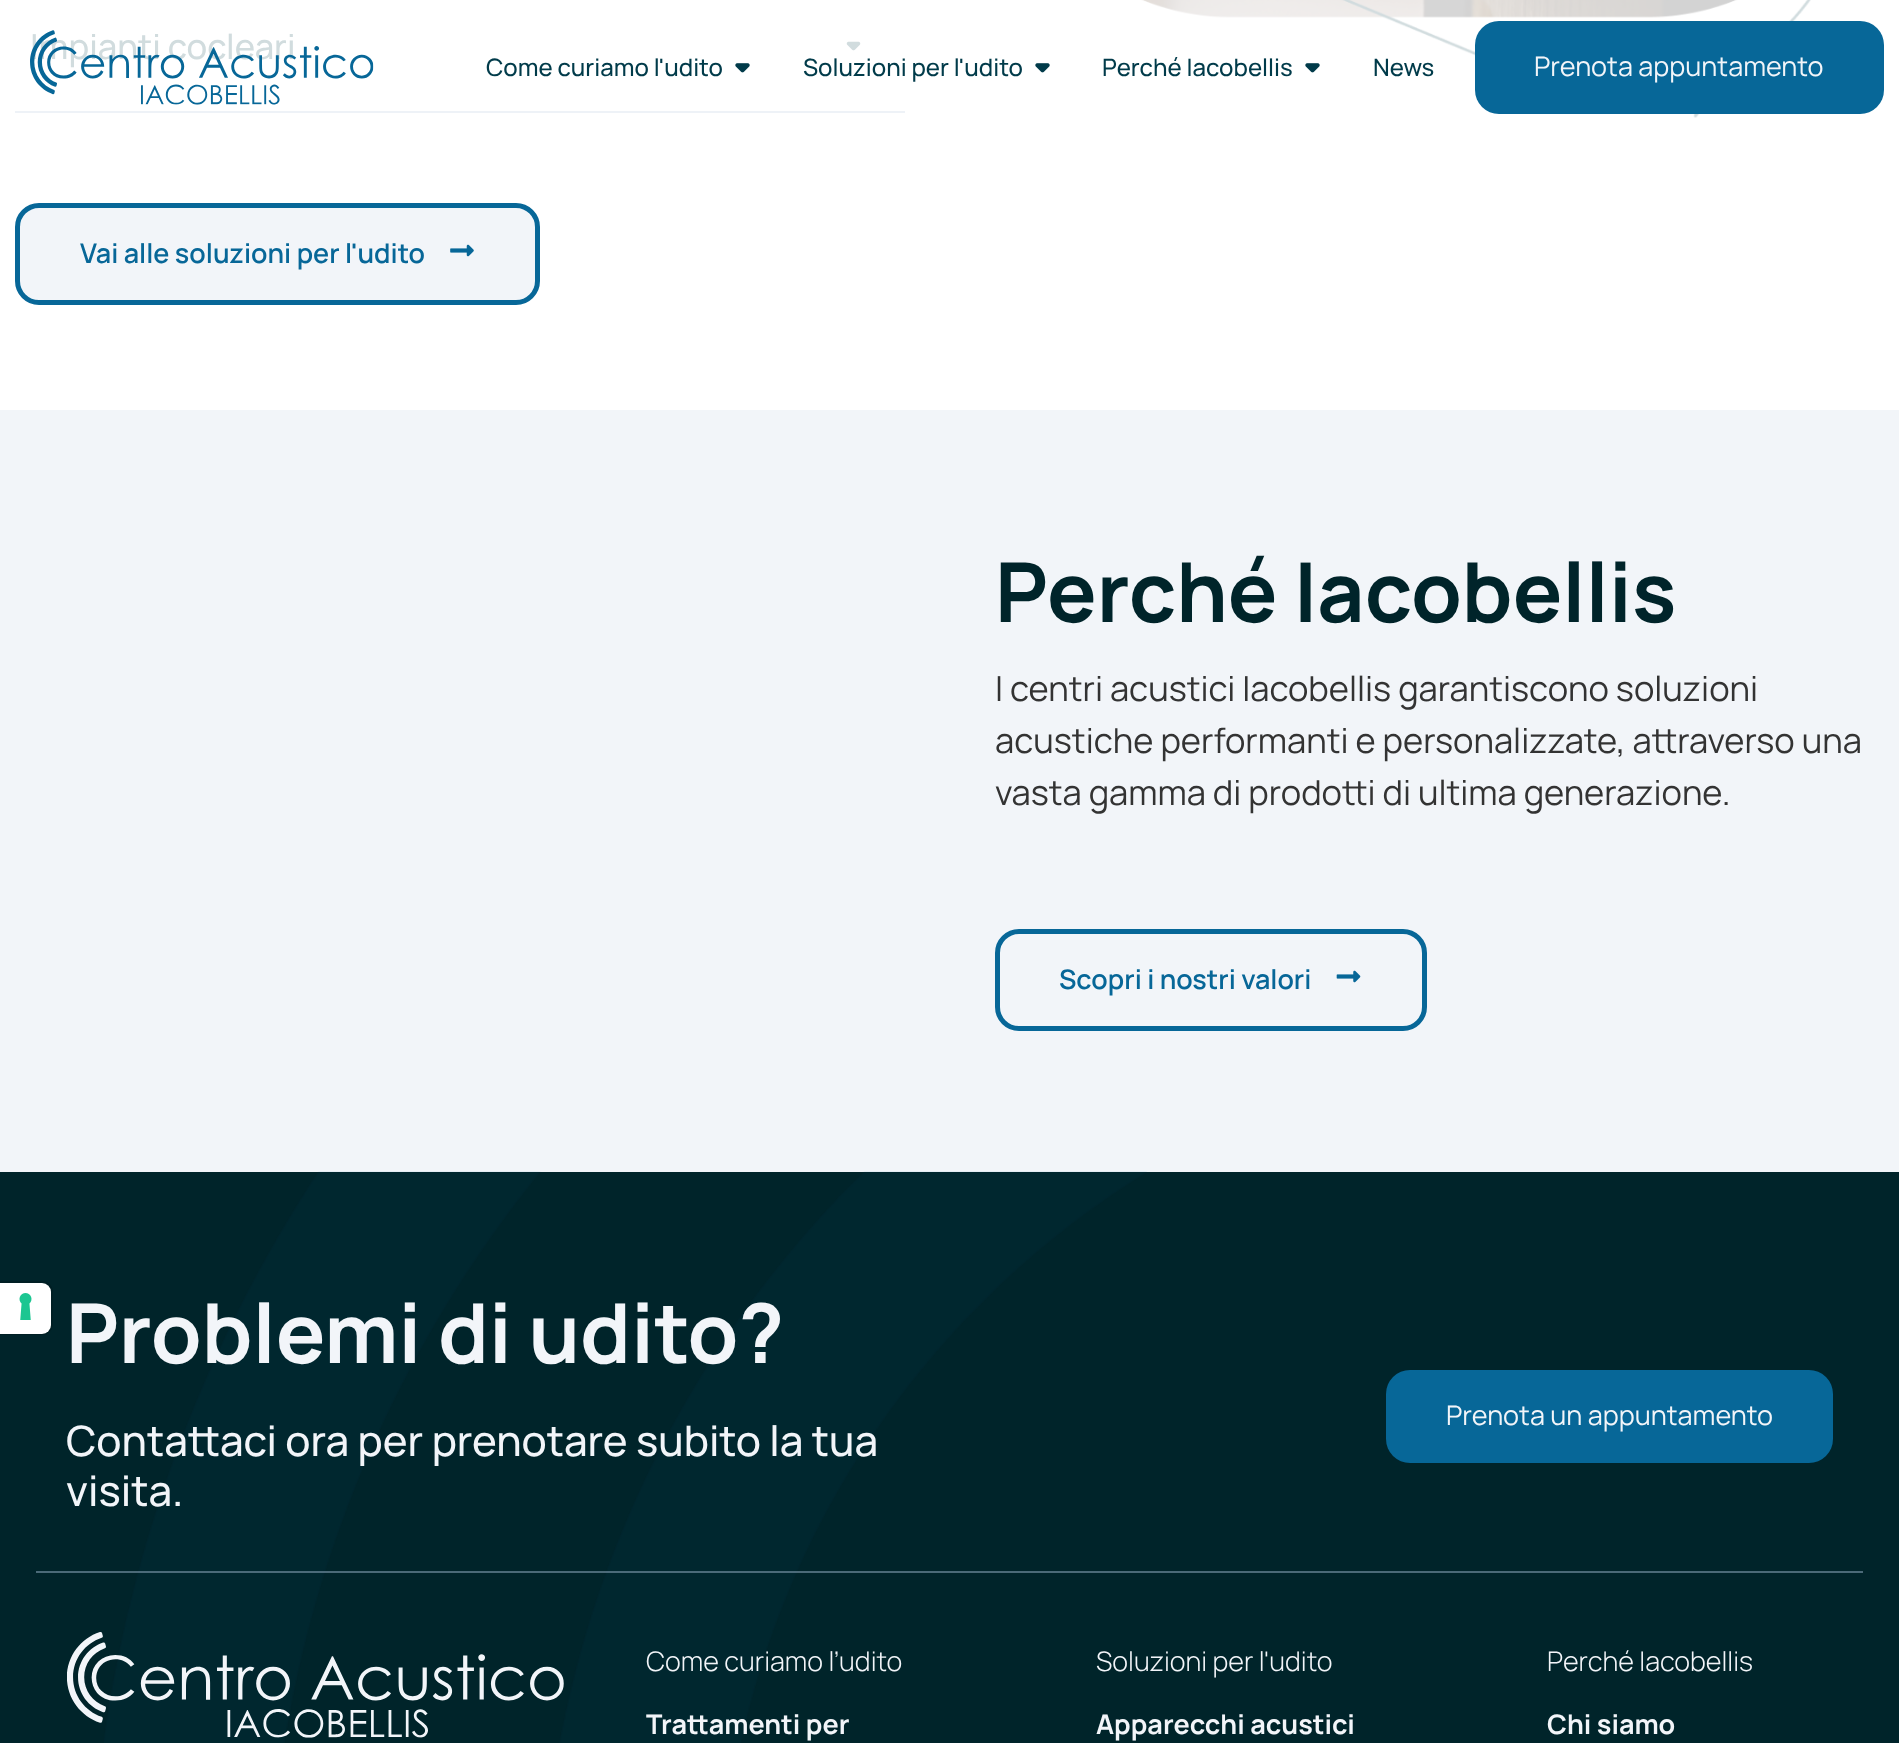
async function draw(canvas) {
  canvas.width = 1899;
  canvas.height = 1743;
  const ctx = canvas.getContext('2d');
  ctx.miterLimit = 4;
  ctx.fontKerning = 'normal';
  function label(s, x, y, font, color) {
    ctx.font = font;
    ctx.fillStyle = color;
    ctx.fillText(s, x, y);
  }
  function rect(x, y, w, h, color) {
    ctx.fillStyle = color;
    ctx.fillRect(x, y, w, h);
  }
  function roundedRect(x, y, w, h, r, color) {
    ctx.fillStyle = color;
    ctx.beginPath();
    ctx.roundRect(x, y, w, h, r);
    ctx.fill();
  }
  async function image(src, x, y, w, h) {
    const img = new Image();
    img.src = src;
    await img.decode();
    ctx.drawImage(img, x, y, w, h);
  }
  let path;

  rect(0, 0, 1899, 1743, '#f2f5f9');
  rect(0, 0, 1899, 410, '#fff');
  rect(15, 111, 890, 2, '#eef2f7');
  label('Impianti cocleari', 30, 59, '500 34.5px Manrope', '#d1dcde');
  await image('assets/img1.png', 846, 41, 15, 10);
  ctx.fillStyle = '#f2f5f9';
  ctx.beginPath();
  ctx.roundRect(17.5, 205.5, 520, 97, 21.5);
  ctx.fill();
  ctx.strokeStyle = '#076798';
  ctx.lineWidth = 5;
  ctx.stroke();
  label('Vai alle soluzioni per l\'udito', 80, 263, '600 27px Manrope', '#076798');
  await image('assets/img2.png', 450, 244, 24, 13);
  await image('assets/img3.png', 1141, 0, 670, 118);
  label('Perché Iacobellis', 995, 622, 'bold 82.5px Manrope', '#00242a');
  label('I centri acustici Iacobellis garantiscono soluzioni', 995, 701, '34.5px Manrope', '#333');
  label('acustiche performanti e personalizzate, attraverso una', 995, 753, '34.5px Manrope', '#333');
  label('vasta gamma di prodotti di ultima generazione.', 995, 805, '34.5px Manrope', '#333');
  ctx.beginPath();
  ctx.roundRect(997.5, 931.5, 427, 97, 21.5);
  ctx.stroke();
  label('Scopri i nostri valori', 1059, 989, '600 27px Manrope', '#076798');
  await image('assets/img4.png', 1336, 970, 25, 13);
  await image('assets/img5.png', 30, 30, 344, 75);
  label('Come curiamo l\'udito', 486, 76, '500 24px Manrope', '#013b4a');
  await image('assets/img6.png', 735, 63, 15, 10);
  label('Soluzioni per l\'udito', 803, 76, '500 24px Manrope', '#013b4a');
  await image('assets/img6.png', 1035, 63, 15, 10);
  label('Perché Iacobellis', 1102, 76, '500 24px Manrope', '#013b4a');
  await image('assets/img6.png', 1305, 63, 15, 10);
  label('News', 1373, 76, '500 24px Manrope', '#013b4a');
  roundedRect(1475, 21, 409, 93, 24, '#076798');
  label('Prenota appuntamento', 1534, 76, '27px Manrope', '#f2f5f9');
  rect(0, 1172, 1899, 571, '#00242a');
  path = new Path2D('M0 1282H42C47.5 1282 52 1286.5 52 1292V1324C52 1329.5 47.5 1334 42 1334H0Z');
  ctx.strokeStyle = '#001f24';
  ctx.lineWidth = 2;
  ctx.stroke(path);
  ctx.fillStyle = '#fff';
  ctx.beginPath();
  ctx.roundRect(0, 1283, 51, 51, [0, 9, 9, 0]);
  ctx.fill();
  await image('assets/img7.png', 19, 1293, 13, 27);
  await image('assets/img8.png', 104, 1171, 1043, 572);
  rect(36, 1571, 1827, 2, '#a0b9d178');
  label('Problemi di udito?', 66, 1363, 'bold 82.5px Manrope', '#f2f5f9');
  label('Contattaci ora per prenotare subito la tua', 66, 1456, '500 42px Manrope', '#f2f5f9');
  label('visita.', 66, 1506, '500 42px Manrope', '#f2f5f9');
  roundedRect(1386, 1370, 447, 93, 24, '#076798');
  label('Prenota un appuntamento', 1446, 1425, '27px Manrope', '#f2f5f9');
  await image('assets/img9.png', 67, 1632, 497, 106);
  label('Come curiamo l’udito', 646, 1671, '300 27px Manrope', '#f2f5f9');
  label('Trattamenti per', 646, 1734, 'bold 27px Manrope', '#f2f5f9');
  label('Soluzioni per l\'udito', 1096, 1671, '300 27px Manrope', '#f2f5f9');
  label('Apparecchi acustici', 1096, 1734, 'bold 27px Manrope', '#f2f5f9');
  label('Perché Iacobellis', 1547, 1671, '300 27px Manrope', '#f2f5f9');
  label('Chi siamo', 1547, 1734, 'bold 27px Manrope', '#f2f5f9');
}

draw(document.querySelector('canvas'));
